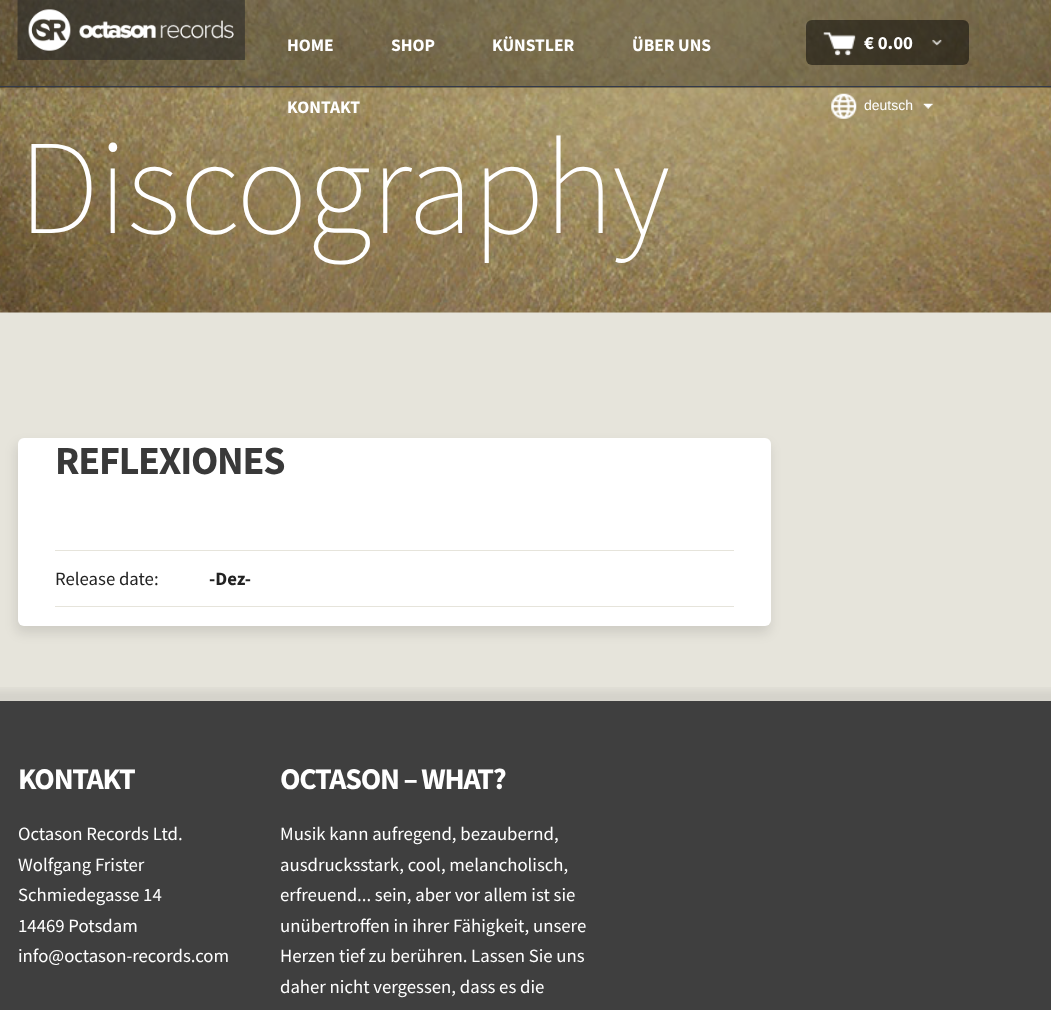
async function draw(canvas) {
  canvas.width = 1051;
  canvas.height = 1010;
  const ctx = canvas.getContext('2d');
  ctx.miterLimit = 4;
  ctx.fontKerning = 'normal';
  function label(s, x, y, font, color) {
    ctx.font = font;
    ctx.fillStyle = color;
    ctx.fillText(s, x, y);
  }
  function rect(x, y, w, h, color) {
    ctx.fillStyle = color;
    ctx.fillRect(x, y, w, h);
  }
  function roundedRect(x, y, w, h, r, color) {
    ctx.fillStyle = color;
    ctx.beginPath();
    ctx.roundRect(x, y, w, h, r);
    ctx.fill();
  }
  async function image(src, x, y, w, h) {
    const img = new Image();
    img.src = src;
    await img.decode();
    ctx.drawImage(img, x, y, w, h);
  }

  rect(0, 0, 1051, 1010, '#e6e4db');
  await image('assets/img6.png', 0, 0, 1051, 313);
  rect(0, 0, 1051, 88, '#0000004d');
  rect(0, 86, 1051, 1, '#333a4a');
  await image('assets/img1.png', 17, 0, 228, 60);
  label('HOME', 287, 51, 'bold 17.5px Source Sans Pro', '#fff');
  label('SHOP', 391, 51, 'bold 17.5px Source Sans Pro', '#fff');
  label('KÜNSTLER', 492, 51, 'bold 17.5px Source Sans Pro', '#fff');
  label('ÜBER UNS', 632, 51, 'bold 17.5px Source Sans Pro', '#fff');
  label('KONTAKT', 287, 113, 'bold 17.5px Source Sans Pro', '#fff');
  roundedRect(806, 20, 163, 45, 6, '#00000080');
  await image('assets/img2.png', 823, 32, 33, 24);
  await image('assets/img3.png', 932, 39, 10, 7);
  label('€ 0.00', 864, 49, 'bold 18.75px Source Sans Pro', '#fff');
  await image('assets/img4.png', 923, 103, 10, 6);
  await image('assets/img5.png', 831, 93, 26, 26);
  label('deutsch', 864, 110, '14px Liberation Sans', '#fff');
  ctx.letterSpacing = '-1.25px';
  label('Discography', 18, 233, '200 135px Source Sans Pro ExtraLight', '#fff');
  await image('assets/img7.png', 0, 687, 1051, 14);
  ctx.fillStyle = '#0000001a';
  ctx.filter = 'blur(6px)';
  ctx.beginPath();
  ctx.roundRect(16, 444, 754, 189, 6);
  ctx.fill();
  ctx.filter = 'none';
  roundedRect(18, 438, 753, 188, 6, '#fff');
  label('REFLEXIONES', 55, 474, 'bold 40px Source Sans Pro', '#393939');
  rect(55, 550, 679, 1, '#e6e4db');
  rect(55, 606, 679, 1, '#e6e4db');
  ctx.letterSpacing = '0px';
  label('Release date:', 55, 585, '18.75px Source Sans Pro', '#222');
  label('-Dez-', 209, 585, 'bold 18.75px Source Sans Pro', '#222');
  rect(0, 701, 1051, 309, '#3f3f3f');
  ctx.letterSpacing = '-1.25px';
  label('KONTAKT', 18, 789, 'bold 30px Source Sans Pro', '#fff');
  ctx.letterSpacing = '0px';
  label('Octason Records Ltd.', 18, 840, '18.75px Source Sans Pro', '#fff');
  label('Wolfgang Frister', 18, 871, '18.75px Source Sans Pro', '#fff');
  label('Schmiedegasse 14', 18, 901, '18.75px Source Sans Pro', '#fff');
  label('14469 Potsdam', 18, 932, '18.75px Source Sans Pro', '#fff');
  label('info@octason-records.com', 18, 962, '18.75px Source Sans Pro', '#fff');
  ctx.letterSpacing = '-1.25px';
  label('OCTASON – WHAT?', 280, 789, 'bold 30px Source Sans Pro', '#fff');
  ctx.letterSpacing = '0px';
  label('Musik kann aufregend, bezaubernd,', 280, 840, '18.75px Source Sans Pro', '#fff');
  label('ausdrucksstark, cool, melancholisch,', 280, 871, '18.75px Source Sans Pro', '#fff');
  label('erfreuend... sein, aber vor allem ist sie', 280, 901, '18.75px Source Sans Pro', '#fff');
  label('unübertroffen in ihrer Fähigkeit, unsere', 280, 932, '18.75px Source Sans Pro', '#fff');
  label('Herzen tief zu berühren. Lassen Sie uns', 280, 962, '18.75px Source Sans Pro', '#fff');
  label('daher nicht vergessen, dass es die', 280, 993, '18.75px Source Sans Pro', '#fff');
}

draw(document.querySelector('canvas'));
